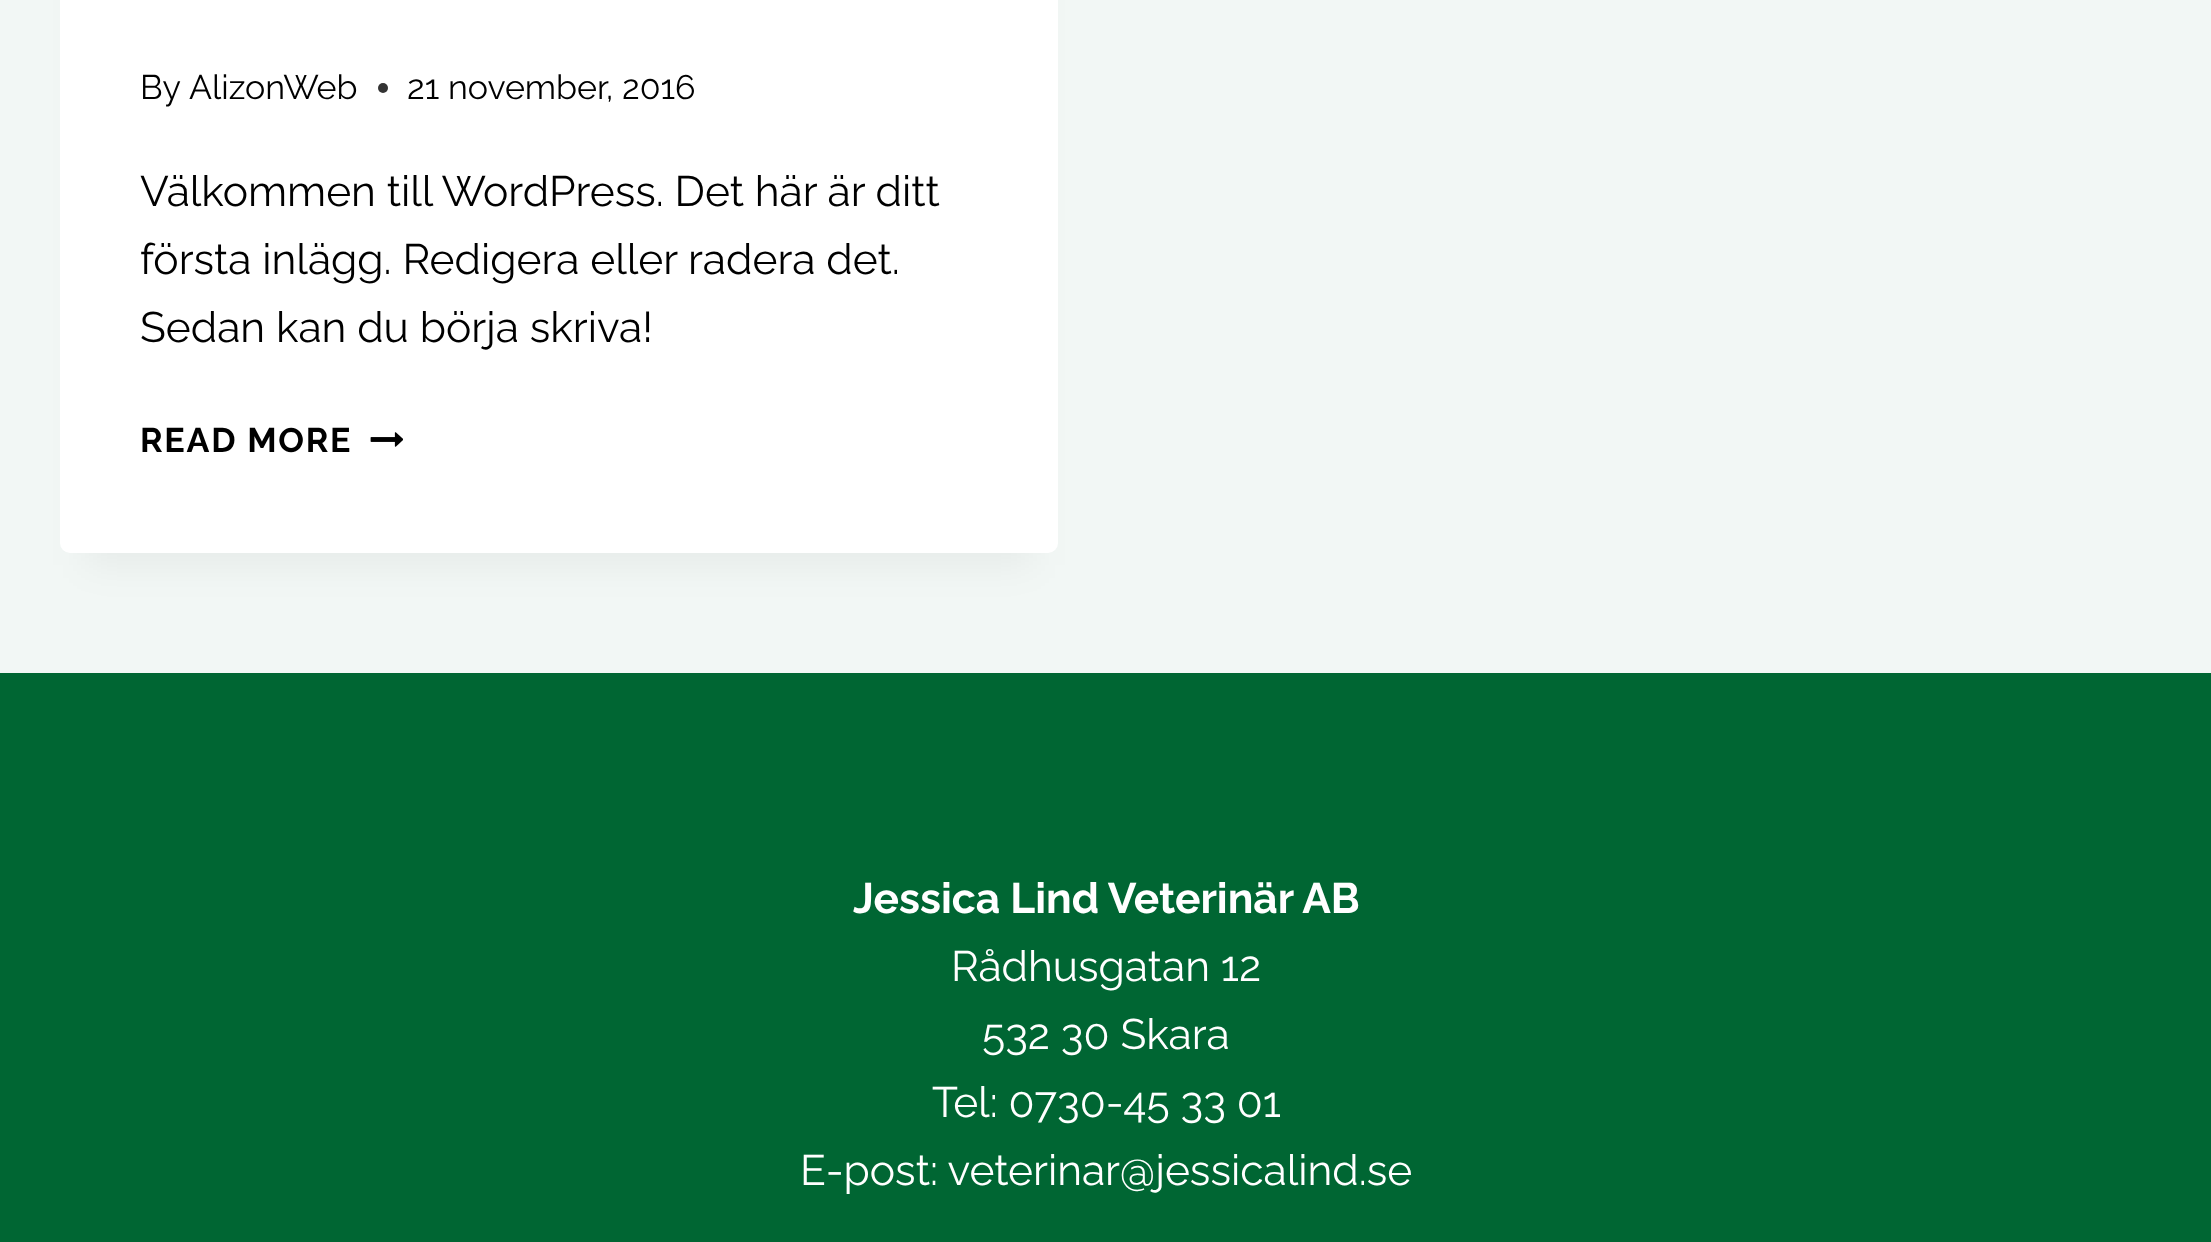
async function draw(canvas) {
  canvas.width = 2211;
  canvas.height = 1242;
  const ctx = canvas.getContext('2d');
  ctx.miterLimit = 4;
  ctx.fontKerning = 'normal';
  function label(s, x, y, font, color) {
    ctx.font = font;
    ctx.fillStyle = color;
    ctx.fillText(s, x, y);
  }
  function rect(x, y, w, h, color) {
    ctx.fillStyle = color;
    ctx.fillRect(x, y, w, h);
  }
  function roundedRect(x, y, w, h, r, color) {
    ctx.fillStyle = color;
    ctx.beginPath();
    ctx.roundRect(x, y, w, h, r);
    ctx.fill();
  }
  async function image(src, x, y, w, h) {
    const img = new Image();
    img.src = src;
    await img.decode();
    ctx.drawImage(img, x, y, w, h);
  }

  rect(0, 0, 2211, 1242, '#f2f7f5');
  ctx.fillStyle = '#0000000d';
  ctx.filter = 'blur(19px)';
  ctx.beginPath();
  ctx.rect(85, -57, 948, 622);
  ctx.fill();
  ctx.filter = 'none';
  roundedRect(60, -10, 998, 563, 10, '#fff');
  label('By', 140, 99, '34px Raleway', '#000');
  label('AlizonWeb', 189, 99, '34px Raleway', '#000');
  ctx.fillStyle = '#333';
  ctx.beginPath();
  ctx.arc(383, 88, 5, 0, 2 * Math.PI);
  ctx.fill();
  label('21 november, 2016', 407, 99, '34px Raleway', '#000');
  label('Välkommen till WordPress. Det här är ditt', 140, 206, '42.5px Raleway', '#000');
  label('första inlägg. Redigera eller radera det.', 140, 274, '42.5px Raleway', '#000');
  label('Sedan kan du börja skriva!', 140, 342, '42.5px Raleway', '#000');
  ctx.letterSpacing = '1.75px';
  label('READ MORE', 140, 452, 'bold 34px Raleway', '#000');
  await image('assets/img1.png', 370, 432, 33, 15);
  rect(0, 673, 2211, 569, '#063');
  ctx.letterSpacing = '0px';
  label('Jessica Lind Veterinär AB', 853, 913, 'bold 42.5px Raleway', '#fff');
  label('Rådhusgatan 12', 951, 981, '42.5px Raleway', '#fff');
  label('532 30 Skara', 982, 1049, '42.5px Raleway', '#fff');
  label('Tel: 0730-45 33 01', 932, 1117, '42.5px Raleway', '#fff');
  label('E-post: veterinar@jessicalind.se', 800, 1185, '42.5px Raleway', '#fff');
}

draw(document.querySelector('canvas'));
